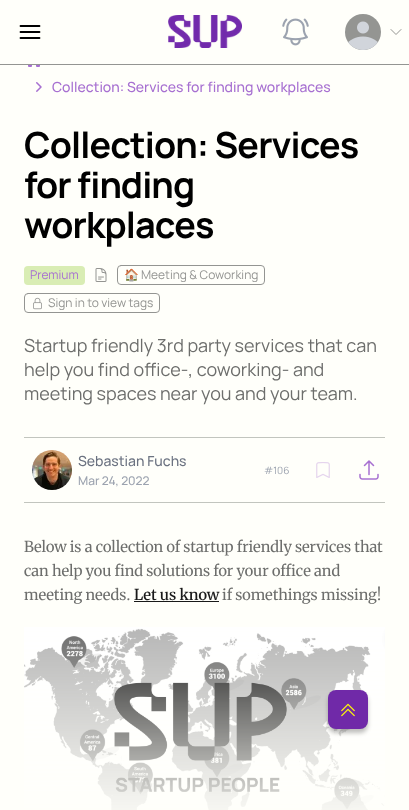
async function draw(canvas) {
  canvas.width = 409;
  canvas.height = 810;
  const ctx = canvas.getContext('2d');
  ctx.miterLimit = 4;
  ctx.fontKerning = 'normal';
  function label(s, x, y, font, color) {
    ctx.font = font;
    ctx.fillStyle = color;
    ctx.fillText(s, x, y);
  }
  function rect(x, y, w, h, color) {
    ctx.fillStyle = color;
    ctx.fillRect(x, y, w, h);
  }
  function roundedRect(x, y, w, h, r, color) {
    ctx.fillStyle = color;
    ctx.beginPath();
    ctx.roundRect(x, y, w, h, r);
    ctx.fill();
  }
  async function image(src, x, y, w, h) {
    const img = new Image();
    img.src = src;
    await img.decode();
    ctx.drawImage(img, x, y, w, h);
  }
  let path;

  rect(0, 0, 409, 810, '#fffffa');
  rect(0, 64, 409, 1, '#949592');
  path = new Path2D('M20.5 26H39.5M20.5 32H39.5M20.5 38H39.5');
  ctx.strokeStyle = '#000';
  ctx.lineWidth = 1.8;
  ctx.lineCap = 'round';
  ctx.lineJoin = 'round';
  ctx.stroke(path);
  await image('assets/img1.png', 168, 15, 74, 33);
  await image('assets/img2.png', 282, 18, 27, 28);
  ctx.beginPath();
  ctx.arc(363, 32, 18, 0, 2 * Math.PI);
  ctx.fill();
  await image('assets/img3.png', 348, 21, 30, 29);
  path = new Path2D('M401 29.5L396 34.5L391 29.5');
  ctx.strokeStyle = '#949592';
  ctx.lineWidth = 1;
  ctx.stroke(path);
  await image('assets/img4.png', 28, 65, 12, 2);
  await image('assets/img5.png', 36, 82, 6, 10);
  label('Collection: Services for finding workplaces', 52, 92, '500 14px Manrope', '#a770d1');
  ctx.letterSpacing = '-0.9px';
  label('Collection: Services', 24, 158, 'bold 36px Manrope', '#000');
  label('for finding', 24, 198, 'bold 36px Manrope', '#000');
  label('workplaces', 24, 238, 'bold 36px Manrope', '#000');
  roundedRect(24, 266, 61, 19, 4, '#d9edb4');
  ctx.letterSpacing = '0px';
  label('Premium', 30, 279, '12px Manrope', '#a770d1');
  await image('assets/img6.png', 95, 268, 12, 14);
  ctx.beginPath();
  ctx.roundRect(117.5, 265.5, 147, 19, 3.5);
  ctx.lineJoin = 'miter';
  ctx.stroke();
  label('🏠', 124, 279, '12px Noto Color Emoji', '#949592');
  label('Meeting & Coworking', 141, 279, '12px Manrope', '#949592');
  ctx.beginPath();
  ctx.roundRect(24.5, 293.5, 135, 19, 3.5);
  ctx.stroke();
  await image('assets/img7.png', 33, 297, 9, 13);
  label('Sign in to view tags', 48, 307, '12px Manrope', '#949592');
  label('Startup friendly 3rd party services that can', 24, 352, '18px Manrope', '#6d6e6c');
  label('help you find office-, coworking- and', 24, 376, '18px Manrope', '#6d6e6c');
  label('meeting spaces near you and your team.', 24, 400, '18px Manrope', '#6d6e6c');
  rect(24, 437, 361, 1, '#c2c5be');
  ctx.fillStyle = '#f3f4f6';
  ctx.beginPath();
  ctx.arc(52, 470, 20, 0, 2 * Math.PI);
  ctx.fill();
  await image('assets/img8.png', 32, 450, 40, 40);
  label('Sebastian Fuchs', 78, 466, '500 14px Manrope', '#6b7280');
  label('Mar 24, 2022', 78, 485, '500 12px Manrope', '#9ca3af');
  label('#106', 264, 474, '10px Manrope', '#9ca3af');
  await image('assets/img9.png', 316, 462, 14, 16);
  await image('assets/img10.png', 359, 460, 20, 20);
  rect(24, 502, 361, 1, '#c2c5be');
  label('Below is a collection of startup friendly services that', 24, 552, '15px Merriweather', '#6d6e6c');
  label('can help you find solutions for your office and', 24, 576, '15px Merriweather', '#6d6e6c');
  label('meeting needs.', 24, 600, '15px Merriweather', '#6d6e6c');
  label('Let us know', 134, 600, '500 15px Merriweather', '#191919');
  rect(134, 601, 85, 1, '#191919');
  label('if somethings missing!', 222, 600, '15px Merriweather', '#6d6e6c');
  await image('assets/img11.png', 24, 627, 361, 183);
  ctx.fillStyle = '#00000040';
  ctx.filter = 'blur(2px)';
  ctx.beginPath();
  ctx.roundRect(328, 694, 40, 39, 8);
  ctx.fill();
  ctx.filter = 'none';
  roundedRect(328, 690, 40, 39, 8, '#7029a8');
  await image('assets/img12.png', 341, 703, 14, 14);
}

draw(document.querySelector('canvas'));
